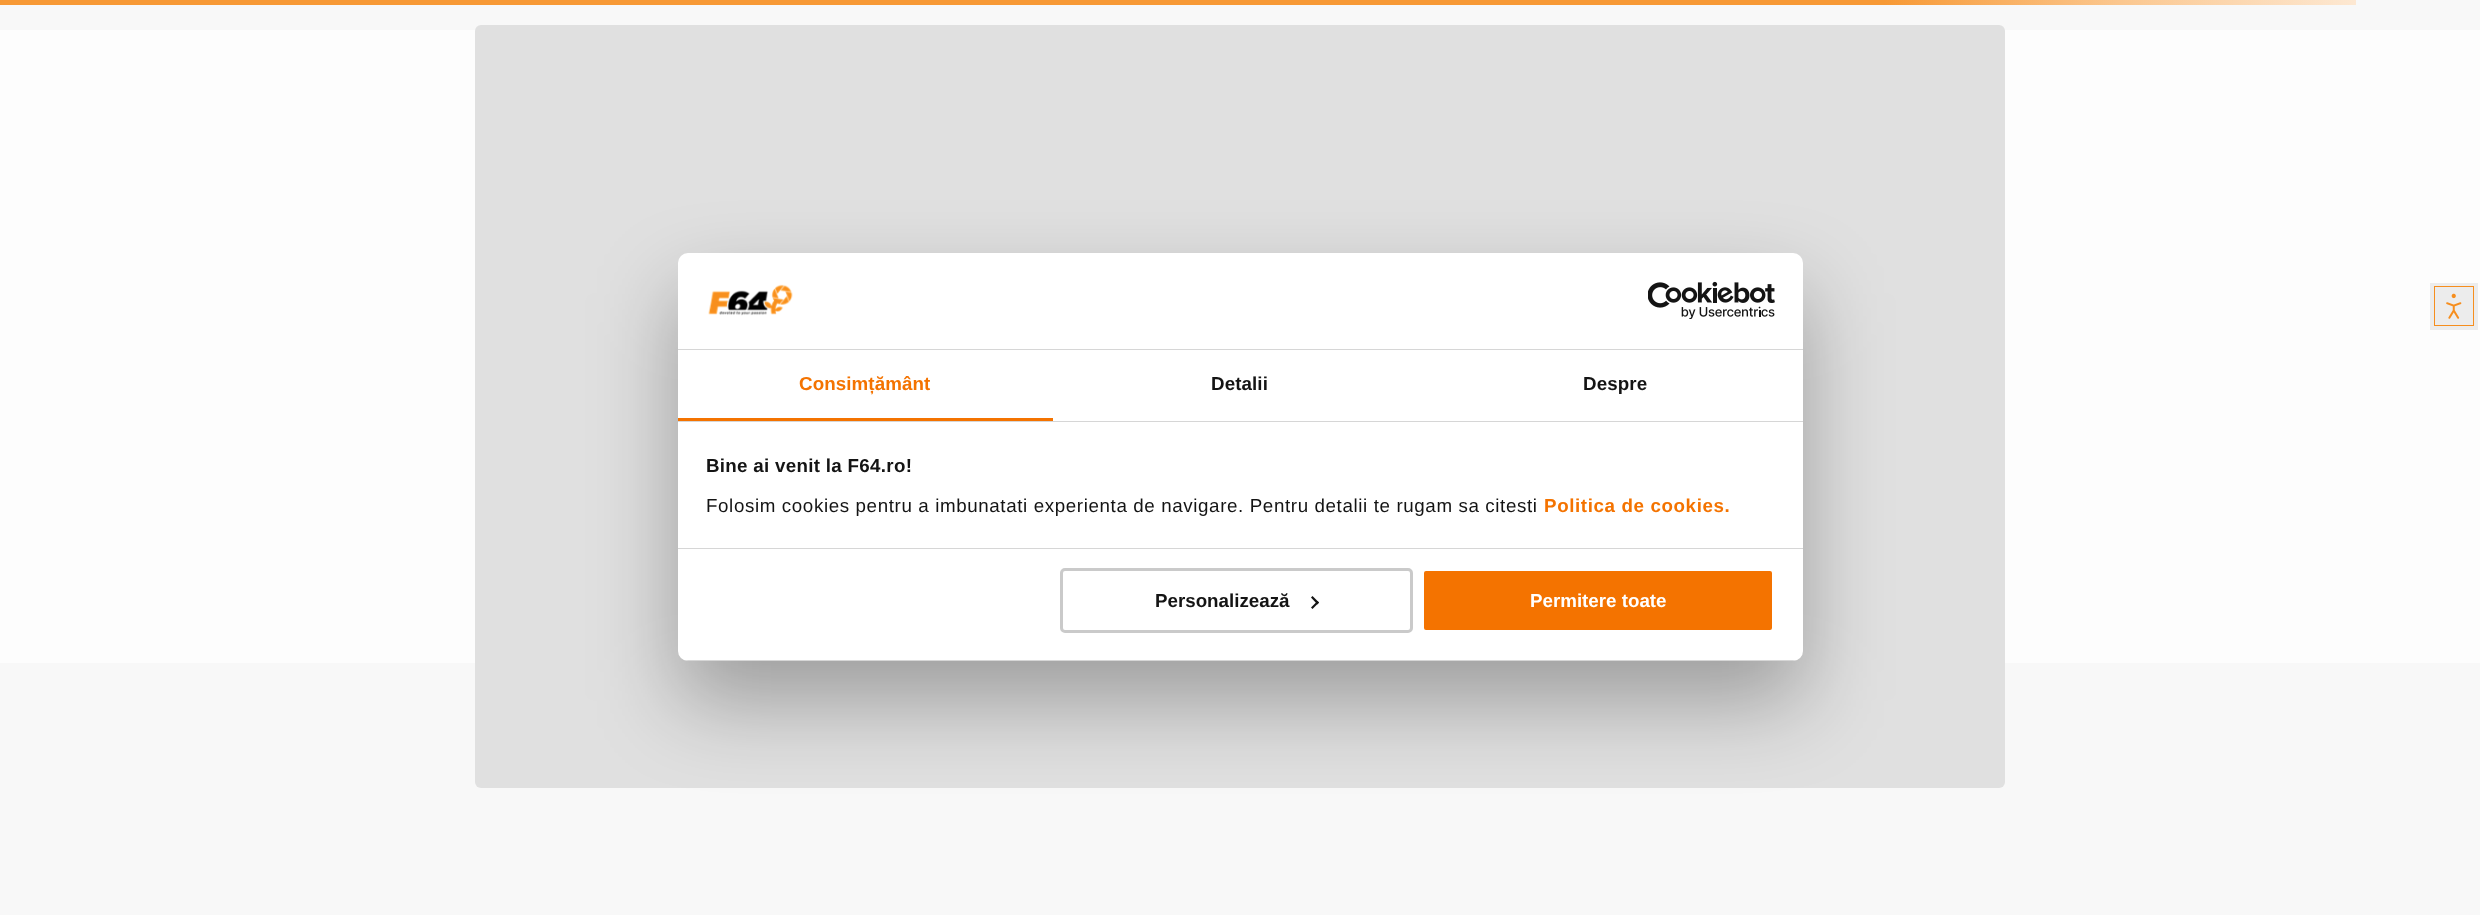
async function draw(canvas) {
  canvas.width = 2480;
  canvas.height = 915;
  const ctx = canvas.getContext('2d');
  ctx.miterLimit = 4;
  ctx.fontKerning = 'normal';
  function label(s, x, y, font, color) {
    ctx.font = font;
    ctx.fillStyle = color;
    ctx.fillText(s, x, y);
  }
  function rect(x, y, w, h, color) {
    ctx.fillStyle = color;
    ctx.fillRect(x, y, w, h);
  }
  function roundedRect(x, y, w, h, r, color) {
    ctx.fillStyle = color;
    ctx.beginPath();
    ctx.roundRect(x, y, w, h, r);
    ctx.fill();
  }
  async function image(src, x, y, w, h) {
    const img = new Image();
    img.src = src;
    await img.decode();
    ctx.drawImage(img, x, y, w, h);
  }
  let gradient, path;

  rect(0, 0, 2480, 915, '#f8f8f8');
  gradient = ctx.createLinearGradient(0, 2.5, 2356, 2.5);
  gradient.addColorStop(0.8, '#f79935');
  gradient.addColorStop(0.9, '#fbc78f');
  gradient.addColorStop(1, '#fde8d2');
  ctx.fillStyle = gradient;
  ctx.fillRect(0, 0, 2356, 5);
  rect(0, 30, 2480, 633, '#fdfdfd');
  gradient = ctx.createLinearGradient(475, 406, 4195, 406);
  gradient.addColorStop(0, '#e0e0e0');
  gradient.addColorStop(0.5, '#e0e0e0');
  gradient.addColorStop(0.6, '#e8e8e8');
  gradient.addColorStop(0.65, '#e0e0e0');
  gradient.addColorStop(1, '#e0e0e0');
  ctx.fillStyle = gradient;
  ctx.beginPath();
  ctx.roundRect(475, 25, 1530, 763, 6);
  ctx.fill();
  await image('assets/img1.png', 2430, 283, 48, 47);
  ctx.fillStyle = '#0000004d';
  ctx.filter = 'blur(42.5px)';
  ctx.beginPath();
  ctx.roundRect(678, 293, 1125, 408, 10);
  ctx.fill();
  ctx.filter = 'none';
  roundedRect(678, 253, 1125, 408, 10, '#fff');
  rect(678, 349, 1125, 1, '#d6d6d6');
  await image('assets/img2.png', 708, 284, 85, 32);
  await image('assets/img3.png', 1648, 281, 127, 38);
  rect(678, 421, 1125, 1, '#d6d6d6');
  rect(678, 418, 375, 3, '#f47300');
  ctx.letterSpacing = '0.1px';
  label('Consimțământ', 799, 390, 'bold 18.75px Liberation Sans', '#f47300');
  label('Detalii', 1211, 390, 'bold 18.75px Liberation Sans', '#141414');
  label('Despre', 1583, 390, 'bold 18.75px Liberation Sans', '#141414');
  rect(678, 548, 1125, 1, '#d6d6d6');
  ctx.letterSpacing = '0.3px';
  label('Bine ai venit la F64.ro!', 706, 472, 'bold 18.75px Liberation Sans', '#141414');
  ctx.letterSpacing = '0.62px';
  label('Folosim cookies pentru a imbunatati experienta de navigare. Pentru detalii te rugam sa citesti', 706, 512, '18.75px Liberation Sans', '#141414');
  label('Politica de cookies.', 1544, 512, 'bold 18.75px Liberation Sans', '#f47300');
  ctx.save();
  ctx.beginPath();
  ctx.roundRect(678, 253, 1125, 408, 10);
  ctx.clip();
  rect(678, 660, 1125, 1, '#d6d6d6');
  ctx.restore();
  ctx.beginPath();
  ctx.roundRect(1061.5, 569.5, 350, 62, 3.5);
  ctx.strokeStyle = '#cacaca';
  ctx.lineWidth = 3;
  ctx.stroke();
  ctx.letterSpacing = '0px';
  label('Personalizează', 1155, 607, 'bold 18.75px Liberation Sans', '#141414');
  path = new Path2D('M1312.5 596L1319 602.5L1317.5 604.5L1311 597.5Z');
  ctx.fill(path);
  path = new Path2D('M1317.5 601L1319 602.5L1312.5 609L1311 607.5Z');
  ctx.fill(path);
  ctx.fillStyle = '#f47300';
  ctx.beginPath();
  ctx.roundRect(1422.5, 569.5, 351, 62, 3.5);
  ctx.fill();
  ctx.strokeStyle = '#fff';
  ctx.stroke();
  label('Permitere toate', 1530, 607, 'bold 18.75px Liberation Sans', '#fff');
}

draw(document.querySelector('canvas'));
